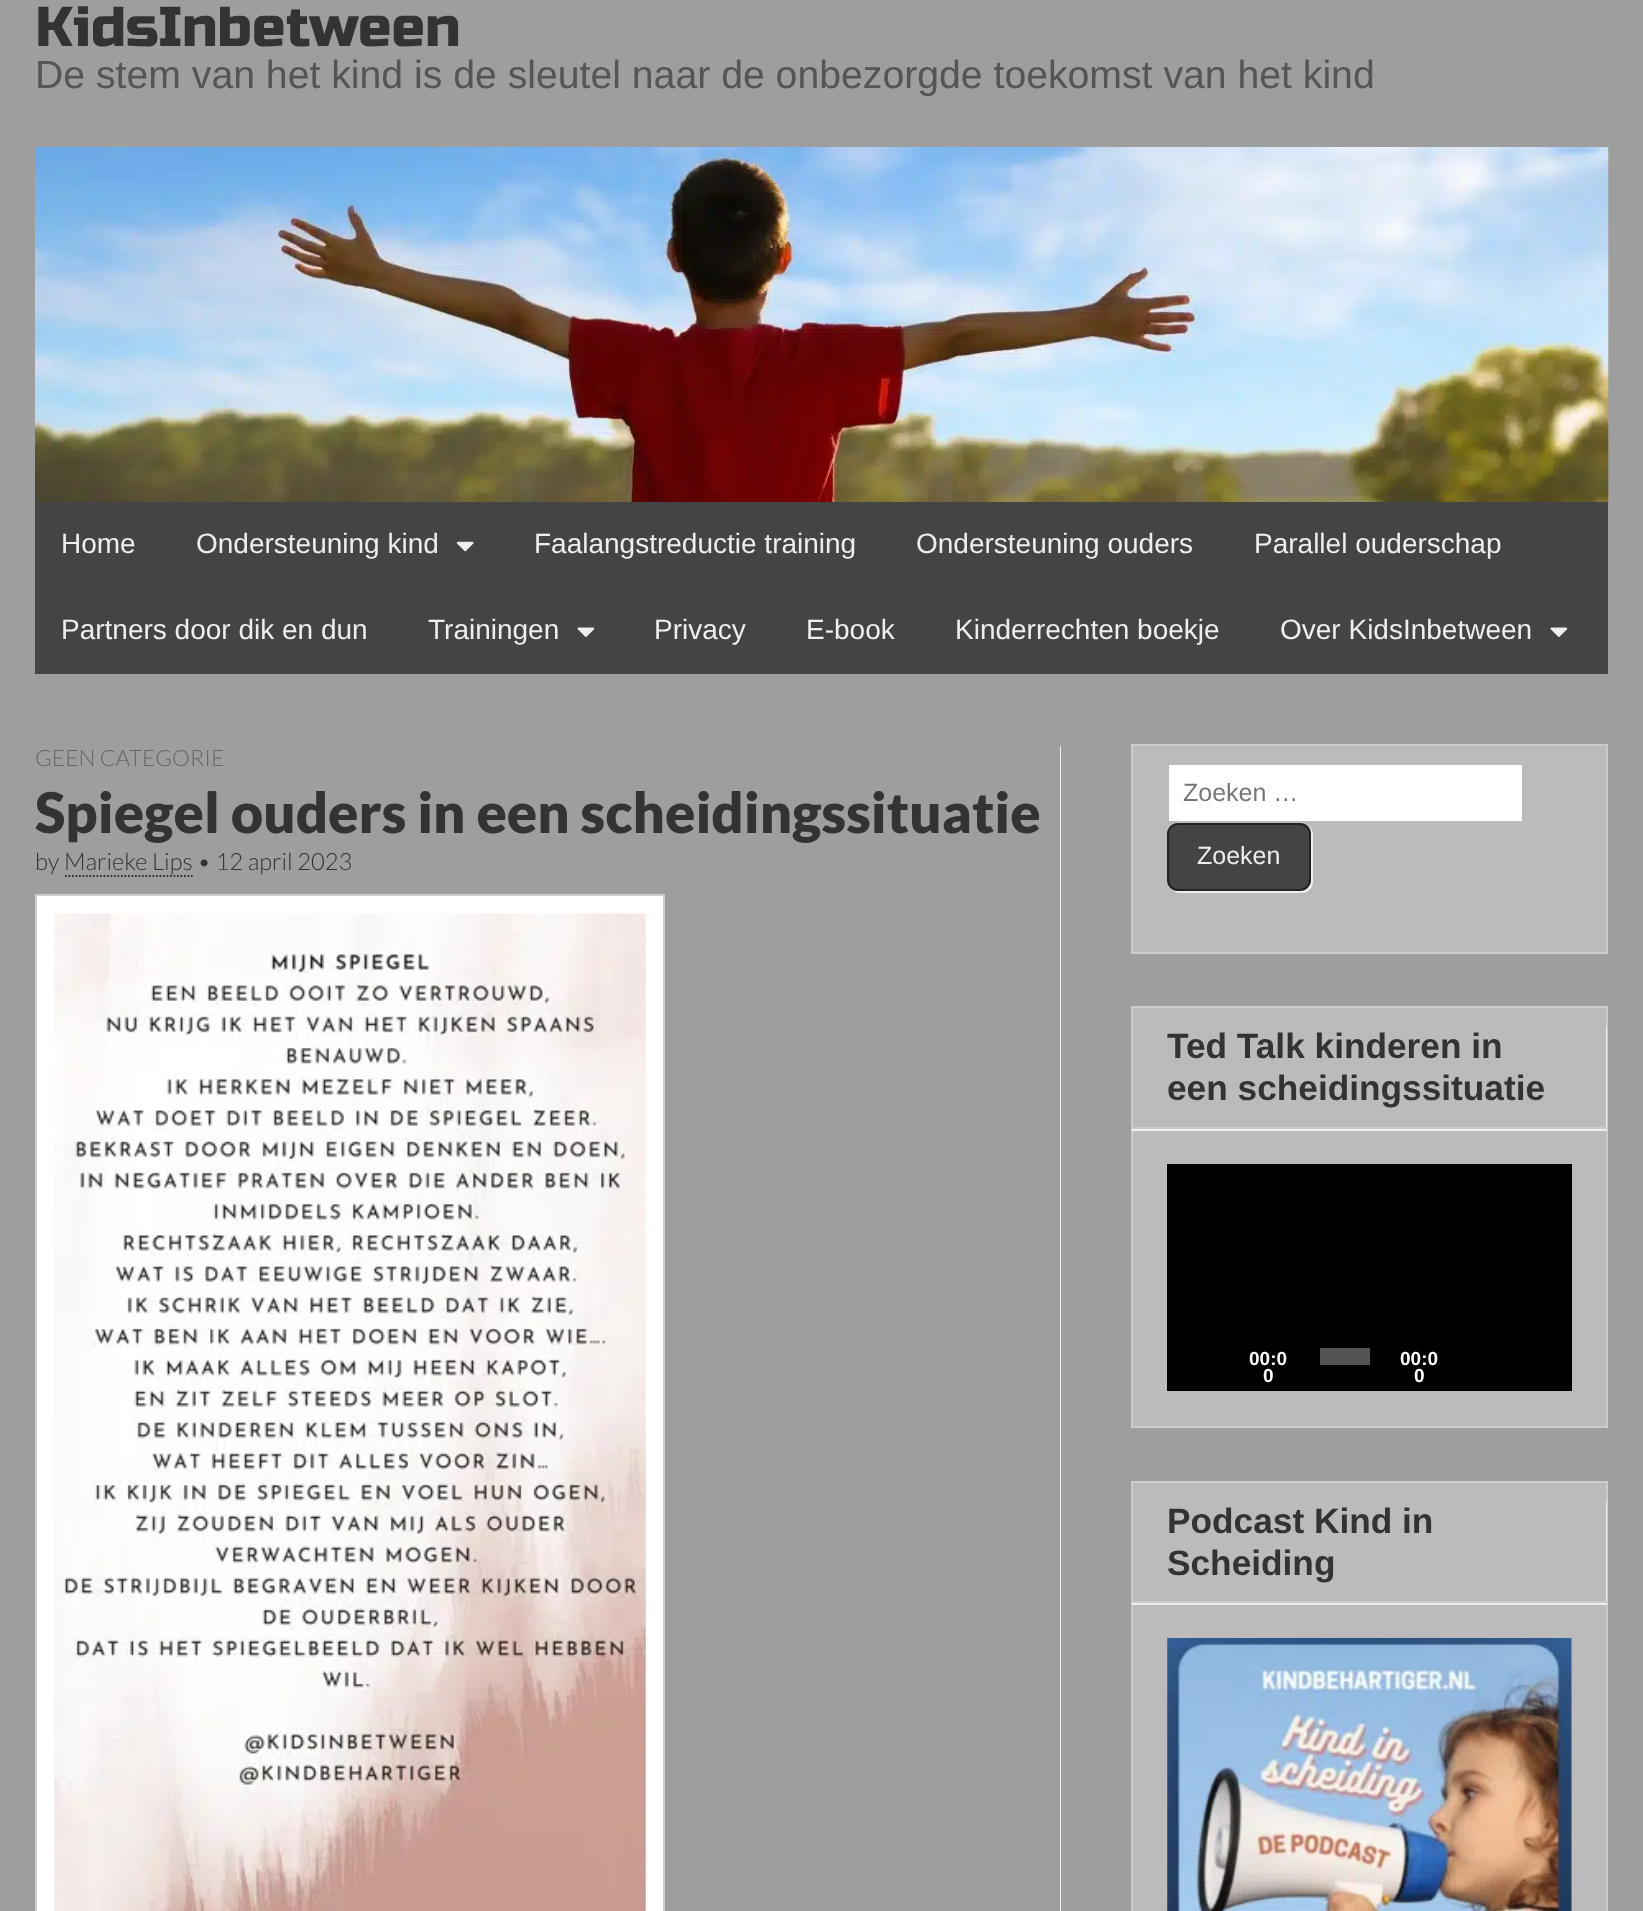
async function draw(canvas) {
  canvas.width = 1643;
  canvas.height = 1911;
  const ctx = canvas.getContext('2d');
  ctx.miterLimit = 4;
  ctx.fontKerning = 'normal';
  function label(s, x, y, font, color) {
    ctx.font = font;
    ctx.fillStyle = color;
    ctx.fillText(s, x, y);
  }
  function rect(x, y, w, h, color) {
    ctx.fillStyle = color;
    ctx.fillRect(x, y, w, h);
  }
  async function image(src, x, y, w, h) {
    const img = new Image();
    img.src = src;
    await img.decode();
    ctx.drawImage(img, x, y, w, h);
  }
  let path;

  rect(0, 0, 1643, 1911, '#9e9e9e');
  label('KidsInbetween', 35, 46, '56px Russo One', '#333');
  label('De stem van het kind is de sleutel naar de onbezorgde toekomst van het kind', 35, 88, '39.2px Liberation Sans', '#555');
  await image('assets/img1.png', 35, 147, 1574, 356);
  rect(35, 502, 1573, 172, '#444');
  label('Home', 61, 553, '28px Liberation Sans', '#eee');
  label('Ondersteuning kind', 196, 553, '28px Liberation Sans', '#eee');
  await image('assets/img2.png', 456, 541, 18, 11);
  label('Faalangstreductie training', 534, 553, '28px Liberation Sans', '#eee');
  label('Ondersteuning ouders', 916, 553, '28px Liberation Sans', '#eee');
  label('Parallel ouderschap', 1254, 553, '28px Liberation Sans', '#eee');
  label('Partners door dik en dun', 61, 639, '28px Liberation Sans', '#eee');
  label('Trainingen', 428, 639, '28px Liberation Sans', '#eee');
  await image('assets/img3.png', 577, 627, 18, 10);
  label('Privacy', 654, 639, '28px Liberation Sans', '#eee');
  label('E-book', 806, 639, '28px Liberation Sans', '#eee');
  label('Kinderrechten boekje', 955, 639, '28px Liberation Sans', '#eee');
  label('Over KidsInbetween', 1280, 639, '28px Liberation Sans', '#eee');
  await image('assets/img3.png', 1550, 627, 18, 10);
  path = new Path2D('M35 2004V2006H1061V746H1060V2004Z');
  ctx.fill(path);
  label('GEEN CATEGORIE', 35, 766, '300 22.5px Lato', '#666');
  label('Spiegel ouders in een scheidingssituatie', 35, 833, '900 56px Lato', '#333');
  label('by Marieke Lips • 12 april 2023', 35, 870, '300 23.75px Lato', '#333');
  path = new Path2D('M65 876H192.5');
  ctx.strokeStyle = '#333';
  ctx.lineWidth = 1.8;
  ctx.setLineDash([1.75, 1.75]);
  ctx.stroke(path);
  ctx.fillStyle = '#fff';
  ctx.beginPath();
  ctx.rect(36, 895, 628, 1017);
  ctx.fill();
  ctx.strokeStyle = '#ccc';
  ctx.lineWidth = 2;
  ctx.setLineDash([]);
  ctx.stroke();
  await image('assets/img4.png', 54, 913, 592, 998);
  ctx.fillStyle = '#bbb';
  ctx.beginPath();
  ctx.rect(1132, 745, 475, 208);
  ctx.fill();
  ctx.stroke();
  rect(1169, 765, 353, 56, '#fff');
  label('Zoeken …', 1183, 801, '25px Liberation Sans', '#757575');
  ctx.fillStyle = '#eee';
  path = new Path2D('M1171 888C1173 891 1176 893 1180 893H1302C1308 893 1313 888 1313 882V835C1313 831 1311 827 1308 826C1310 827 1311 830 1311 833V880C1311 886 1306 891 1300 891H1178C1175 891 1173 890 1171 888Z');
  ctx.fill(path);
  ctx.fillStyle = '#444';
  ctx.beginPath();
  ctx.roundRect(1168, 824, 142, 66, 10);
  ctx.fill();
  ctx.strokeStyle = '#222';
  ctx.stroke();
  label('Zoeken', 1197, 864, '25px Liberation Sans', '#eee');
  ctx.fillStyle = '#bbb';
  ctx.beginPath();
  ctx.rect(1132, 1007, 475, 420);
  ctx.fill();
  ctx.strokeStyle = '#ccc';
  ctx.stroke();
  ctx.fillStyle = '#eee';
  path = new Path2D('M1132 1027V1131H1607V1027H1606V1129H1132Z');
  ctx.fill(path);
  rect(1132, 1127, 475, 2, '#ccc');
  label('Ted Talk kinderen in', 1167, 1058, 'bold 35.25px Liberation Sans', '#333');
  label('een scheidingssituatie', 1167, 1100, 'bold 35.25px Liberation Sans', '#333');
  rect(1167, 1164, 405, 227, '#000');
  label('00:0', 1249, 1365, 'bold 19px Liberation Sans', '#fff');
  label('0', 1263, 1382, 'bold 19px Liberation Sans', '#fff');
  rect(1320, 1348, 50, 17, '#545454');
  label('00:0', 1400, 1365, 'bold 19px Liberation Sans', '#fff');
  label('0', 1414, 1382, 'bold 19px Liberation Sans', '#fff');
  ctx.fillStyle = '#bbb';
  ctx.beginPath();
  ctx.rect(1132, 1482, 475, 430);
  ctx.fill();
  ctx.stroke();
  ctx.fillStyle = '#eee';
  path = new Path2D('M1132 1502V1605H1607V1502H1606V1603H1132Z');
  ctx.fill(path);
  rect(1132, 1601, 475, 2, '#ccc');
  label('Podcast Kind in', 1167, 1533, 'bold 35.25px Liberation Sans', '#333');
  label('Scheiding', 1167, 1575, 'bold 35.25px Liberation Sans', '#333');
  await image('assets/img5.png', 1167, 1638, 405, 273);
}

draw(document.querySelector('canvas'));
